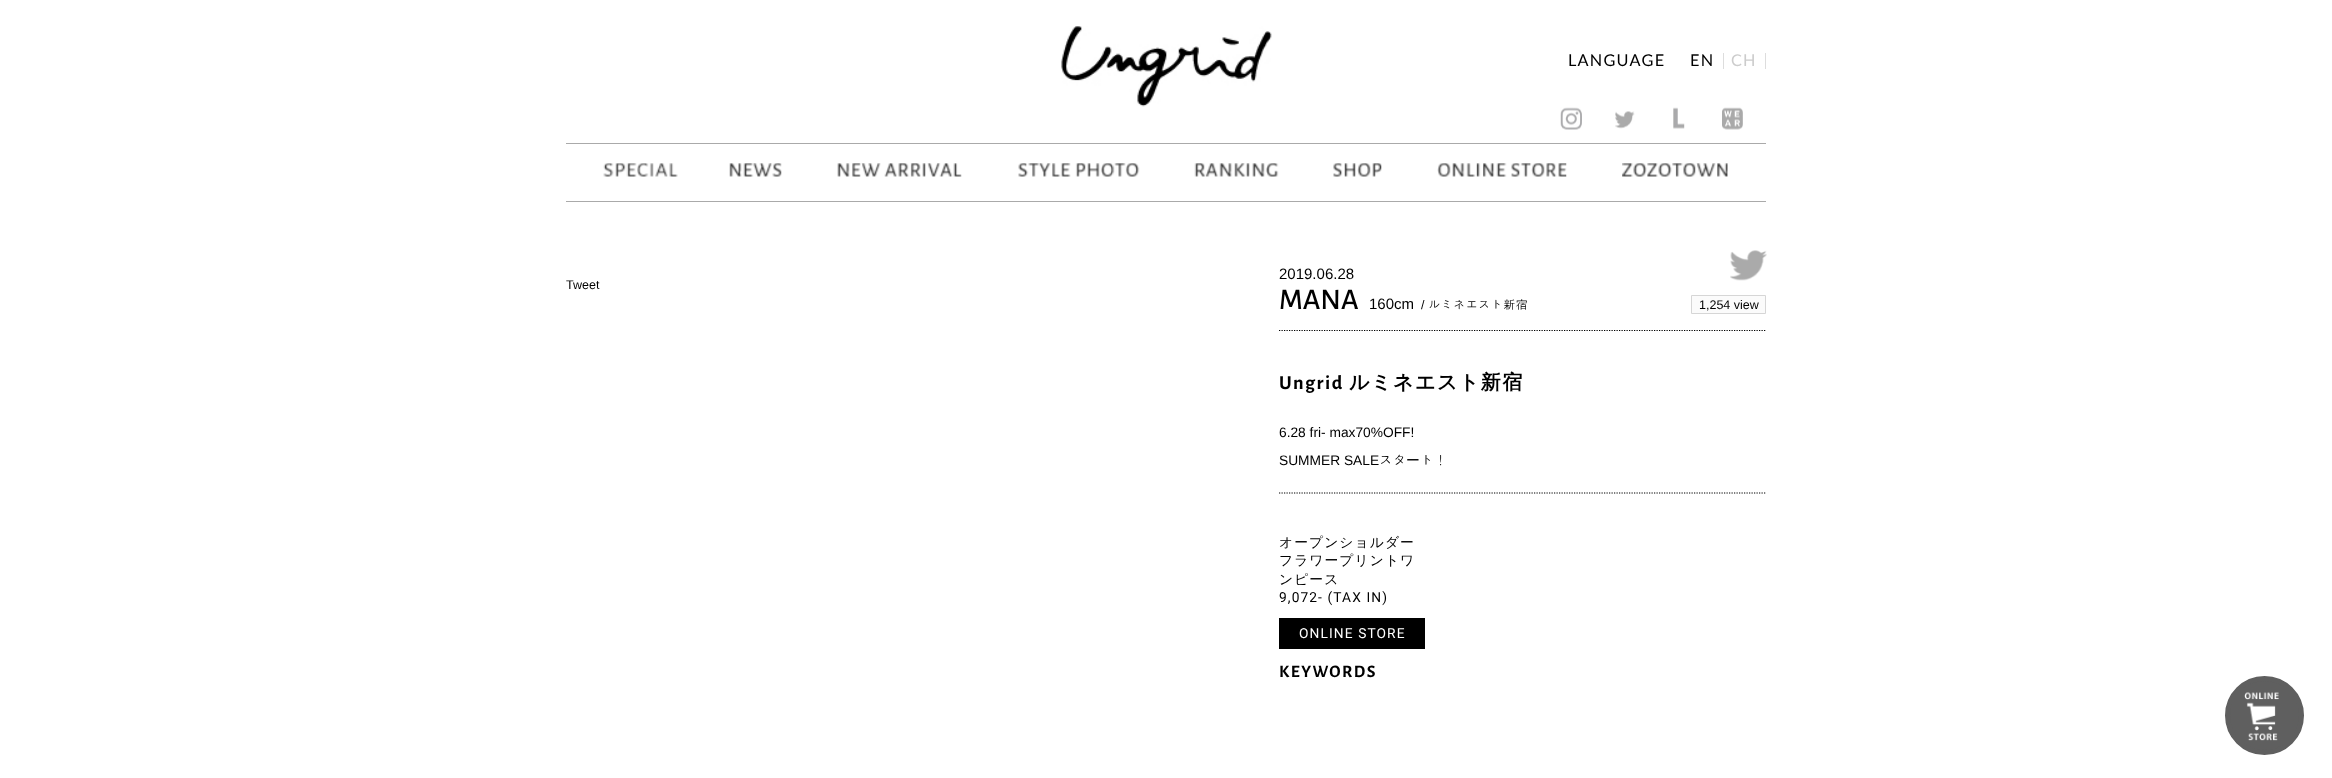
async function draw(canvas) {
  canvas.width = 2332;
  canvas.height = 778;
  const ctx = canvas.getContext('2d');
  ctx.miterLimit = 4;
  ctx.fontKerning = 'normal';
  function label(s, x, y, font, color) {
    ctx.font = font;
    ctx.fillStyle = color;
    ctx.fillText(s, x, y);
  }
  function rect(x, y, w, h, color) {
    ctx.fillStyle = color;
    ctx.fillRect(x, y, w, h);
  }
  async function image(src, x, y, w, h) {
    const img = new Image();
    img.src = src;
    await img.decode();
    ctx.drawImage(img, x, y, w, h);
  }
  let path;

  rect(0, 0, 2332, 778, '#fff');
  await image('assets/img1.png', 1061, 26, 211, 81);
  ctx.letterSpacing = '1.25px';
  label('LANGUAGE', 1568, 66, '16.25px Lato', '#000');
  rect(1723, 53, 1, 16, '#ddd');
  label('EN', 1690, 66, '16.25px Lato', '#000');
  rect(1765, 53, 1, 16, '#ddd');
  label('CH', 1731, 66, '16.25px Lato', '#ccc');
  await image('assets/img2.png', 1560, 107, 22, 23);
  await image('assets/img3.png', 1615, 111, 20, 18);
  await image('assets/img4.png', 1673, 107, 12, 22);
  await image('assets/img5.png', 1722, 107, 21, 23);
  rect(566, 143, 1200, 1, '#aaa');
  rect(566, 201, 1200, 1, '#aaa');
  await image('assets/img6.png', 603, 163, 75, 14);
  await image('assets/img7.png', 729, 163, 53, 14);
  await image('assets/img8.png', 837, 163, 125, 14);
  await image('assets/img9.png', 1018, 163, 122, 14);
  await image('assets/img10.png', 1194, 163, 85, 14);
  await image('assets/img11.png', 1333, 163, 49, 14);
  await image('assets/img12.png', 1437, 163, 130, 14);
  await image('assets/img13.png', 1622, 163, 106, 14);
  ctx.letterSpacing = '0px';
  label('Tweet', 566, 289, '12.5px Liberation Sans', '#000');
  label('2019.06.28', 1279, 279, '15px Liberation Sans', '#000');
  label('MANA', 1279, 309, '500 30px Alegreya Sans', '#000');
  label('160cm', 1369, 309, '15px Liberation Sans', '#000');
  label('/', 1421, 309, '12.5px Liberation Sans', '#000');
  label('ルミネエスト新宿', 1428, 309, '12.5px Gulim', '#000');
  await image('assets/img14.png', 1730, 250, 37, 31);
  ctx.fillStyle = '#fbfbfb';
  ctx.beginPath();
  ctx.rect(1691.5, 295.5, 74, 18);
  ctx.fill();
  ctx.strokeStyle = '#d6d6d6';
  ctx.stroke();
  label('1,254 view', 1699, 309, '12.5px Liberation Sans', '#000');
  path = new Path2D('M1279 330.5H1766');
  ctx.strokeStyle = '#000';
  ctx.lineWidth = 1.2;
  ctx.setLineDash([1.25, 1.25]);
  ctx.stroke(path);
  ctx.letterSpacing = '1.5px';
  label('Ungrid', 1279, 389, 'bold 20px Alegreya Sans', '#000');
  label('ルミネエスト新宿', 1349, 389, 'bold 20px WenQuanYi Zen Hei', '#000');
  path = new Path2D('M1279 493H1766');
  ctx.stroke(path);
  ctx.letterSpacing = '0px';
  label('6.28 fri- max70%OFF!', 1279, 437, '13.75px Liberation Sans', '#000');
  label('SUMMER SALE', 1279, 465, '13.75px Liberation Sans', '#000');
  label('スタ', 1379, 465, '13.75px Gulim', '#000');
  label('ー', 1406, 465, '500 13.75px WenQuanYi Zen Hei', '#000');
  label('ト！', 1420, 465, '13.75px Gulim', '#000');
  ctx.letterSpacing = '1.1px';
  label('オープンショルダー', 1279, 547, '500 13.75px WenQuanYi Zen Hei', '#000');
  label('フラワープリントワ', 1279, 565, '500 13.75px WenQuanYi Zen Hei', '#000');
  label('ンピース', 1279, 584, '500 13.75px WenQuanYi Zen Hei', '#000');
  label('9,072- (TAX IN)', 1279, 602, '13.75px Roboto', '#000');
  rect(1279, 618, 146, 31, '#000');
  label('ONLINE STORE', 1299, 638, '13.75px Roboto', '#fff');
  ctx.letterSpacing = '1.5px';
  label('KEYWORDS', 1279, 677, 'bold 17.5px Alegreya Sans', '#000');
  ctx.fillStyle = '#5f5f5f';
  ctx.beginPath();
  ctx.arc(2263.5, 716.5, 37, 0, 2 * Math.PI);
  ctx.fill();
  ctx.strokeStyle = '#5f5f5f';
  ctx.lineWidth = 1;
  ctx.setLineDash([]);
  ctx.stroke();
  ctx.beginPath();
  ctx.arc(2263.5, 716.5, 37, 0, 2 * Math.PI);
  ctx.stroke();
  ctx.beginPath();
  ctx.arc(2263.5, 716.5, 37, 0, 2 * Math.PI);
  ctx.stroke();
  ctx.beginPath();
  ctx.arc(2263.5, 716.5, 37, 0, 2 * Math.PI);
  ctx.stroke();
  ctx.beginPath();
  ctx.arc(2263.5, 716.5, 37, 0, 2 * Math.PI);
  ctx.stroke();
  ctx.beginPath();
  ctx.arc(2263.5, 716.5, 37, 0, 2 * Math.PI);
  ctx.stroke();
  ctx.beginPath();
  ctx.arc(2264.5, 715.5, 37, 0, 2 * Math.PI);
  ctx.lineWidth = 5;
  ctx.stroke();
  await image('assets/img15.png', 2244, 692, 35, 49);
}

draw(document.querySelector('canvas'));
